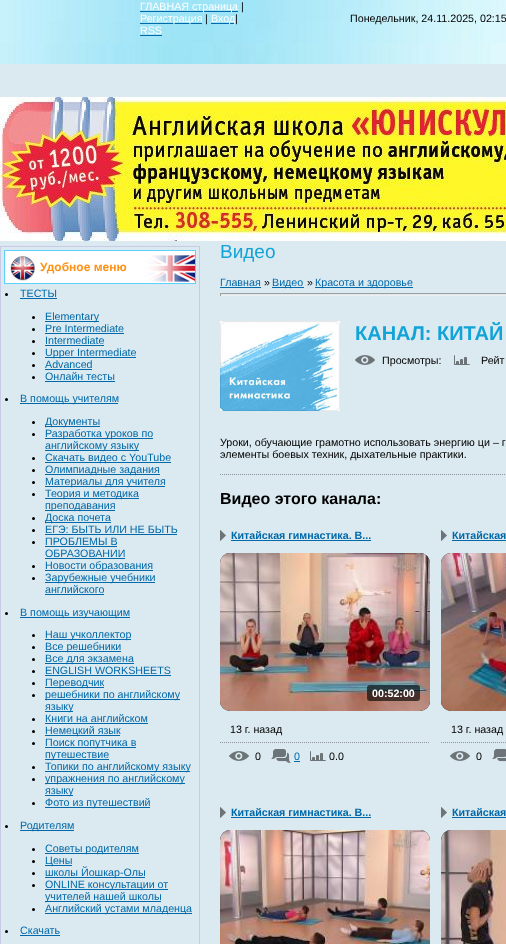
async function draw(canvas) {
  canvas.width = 506;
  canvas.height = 944;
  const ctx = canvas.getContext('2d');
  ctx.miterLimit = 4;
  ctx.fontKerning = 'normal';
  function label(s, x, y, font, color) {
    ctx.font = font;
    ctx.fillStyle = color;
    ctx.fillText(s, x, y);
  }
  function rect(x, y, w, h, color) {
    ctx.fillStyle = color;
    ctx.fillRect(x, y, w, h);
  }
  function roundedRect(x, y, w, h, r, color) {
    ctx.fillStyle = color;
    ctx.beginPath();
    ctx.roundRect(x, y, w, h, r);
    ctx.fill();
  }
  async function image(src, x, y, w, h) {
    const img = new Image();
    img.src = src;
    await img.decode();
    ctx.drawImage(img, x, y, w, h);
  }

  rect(0, 0, 506, 944, '#dbe9f0');
  await image('assets/img1.png', 0, 0, 506, 64);
  rect(140, 11, 98, 1, '#0069a9');
  label('ГЛАВНАЯ страница', 140, 10, '10.7px Liberation Sans', '#fff');
  label('|', 241, 10, '10.7px Liberation Sans', '#000');
  rect(140, 23, 62, 1, '#0069a9');
  label('Регистрация', 140, 22, '10.7px Liberation Sans', '#fff');
  label('|', 205, 22, '10.7px Liberation Sans', '#000');
  rect(211, 23, 24, 1, '#0069a9');
  label('Вход', 211, 22, '10.7px Liberation Sans', '#fff');
  label('|', 235, 22, '10.7px Liberation Sans', '#000');
  label('RSS', 140, 34, '10.7px Liberation Sans', '#fff');
  rect(140, 35, 22, 1, '#0069a9');
  label('Понедельник, 24.11.2025, 02:15', 350, 22, '10.7px Liberation Sans', '#000');
  await image('assets/img2.png', 0, 97, 506, 144);
  ctx.strokeStyle = '#cacae6';
  ctx.strokeRect(0.5, 246.5, 199, 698);
  await image('assets/img3.png', 5, 251, 190, 32);
  ctx.strokeStyle = '#5bd1fc';
  ctx.strokeRect(4.5, 250.5, 191, 33);
  label('Удобное меню', 40, 271, 'bold 12px Liberation Sans', '#ff9115');
  ctx.fillStyle = '#000';
  ctx.beginPath();
  ctx.arc(6.5, 294.5, 1.5, 0, 2 * Math.PI);
  ctx.fill();
  label('ТЕСТЫ', 20, 297, '10.7px Liberation Sans', '#0069a9');
  rect(20, 298, 37, 1, '#0069a9');
  ctx.fillStyle = '#000';
  ctx.beginPath();
  ctx.arc(33.5, 317.5, 1.5, 0, 2 * Math.PI);
  ctx.fill();
  rect(45, 321, 54, 1, '#0069a9');
  label('Elementary', 45, 320, '10.7px Liberation Sans', '#0069a9');
  ctx.fillStyle = '#000';
  ctx.beginPath();
  ctx.arc(33.5, 329.5, 1.5, 0, 2 * Math.PI);
  ctx.fill();
  label('Pre Intermediate', 45, 332, '10.7px Liberation Sans', '#0069a9');
  rect(45, 333, 79, 1, '#0069a9');
  ctx.fillStyle = '#000';
  ctx.beginPath();
  ctx.arc(33.5, 341.5, 1.5, 0, 2 * Math.PI);
  ctx.fill();
  label('Intermediate', 45, 344, '10.7px Liberation Sans', '#0069a9');
  rect(45, 345, 59, 1, '#0069a9');
  ctx.fillStyle = '#000';
  ctx.beginPath();
  ctx.arc(33.5, 353.5, 1.5, 0, 2 * Math.PI);
  ctx.fill();
  rect(45, 357, 91, 1, '#0069a9');
  label('Upper Intermediate', 45, 356, '10.7px Liberation Sans', '#0069a9');
  ctx.fillStyle = '#000';
  ctx.beginPath();
  ctx.arc(33.5, 365.5, 1.5, 0, 2 * Math.PI);
  ctx.fill();
  label('Advanced', 45, 368, '10.7px Liberation Sans', '#0069a9');
  rect(45, 369, 47, 1, '#0069a9');
  ctx.fillStyle = '#000';
  ctx.beginPath();
  ctx.arc(33.5, 377.5, 1.5, 0, 2 * Math.PI);
  ctx.fill();
  label('Онлайн тесты', 45, 380, '10.7px Liberation Sans', '#0069a9');
  rect(45, 381, 70, 1, '#0069a9');
  ctx.fillStyle = '#000';
  ctx.beginPath();
  ctx.arc(6.5, 399.5, 1.5, 0, 2 * Math.PI);
  ctx.fill();
  rect(20, 403, 98, 1, '#0069a9');
  label('В помощь учителям', 20, 402, '10.7px Liberation Sans', '#0069a9');
  ctx.fillStyle = '#000';
  ctx.beginPath();
  ctx.arc(33.5, 422.5, 1.5, 0, 2 * Math.PI);
  ctx.fill();
  rect(45, 426, 55, 1, '#0069a9');
  label('Документы', 45, 425, '10.7px Liberation Sans', '#0069a9');
  ctx.fillStyle = '#000';
  ctx.beginPath();
  ctx.arc(33.5, 434.5, 1.5, 0, 2 * Math.PI);
  ctx.fill();
  rect(45, 438, 108, 1, '#0069a9');
  label('Разработка уроков по', 45, 437, '10.7px Liberation Sans', '#0069a9');
  rect(45, 450, 94, 1, '#0069a9');
  label('английскому языку', 45, 449, '10.7px Liberation Sans', '#0069a9');
  ctx.fillStyle = '#000';
  ctx.beginPath();
  ctx.arc(33.5, 458.5, 1.5, 0, 2 * Math.PI);
  ctx.fill();
  rect(45, 462, 126, 1, '#0069a9');
  label('Скачать видео с YouTube', 45, 461, '10.7px Liberation Sans', '#0069a9');
  ctx.fillStyle = '#000';
  ctx.beginPath();
  ctx.arc(33.5, 470.5, 1.5, 0, 2 * Math.PI);
  ctx.fill();
  rect(45, 474, 115, 1, '#0069a9');
  label('Олимпиадные задания', 45, 473, '10.7px Liberation Sans', '#0069a9');
  ctx.fillStyle = '#000';
  ctx.beginPath();
  ctx.arc(33.5, 482.5, 1.5, 0, 2 * Math.PI);
  ctx.fill();
  rect(45, 486, 120, 1, '#0069a9');
  label('Материалы для учителя', 45, 485, '10.7px Liberation Sans', '#0069a9');
  ctx.fillStyle = '#000';
  ctx.beginPath();
  ctx.arc(33.5, 494.5, 1.5, 0, 2 * Math.PI);
  ctx.fill();
  rect(45, 498, 94, 1, '#0069a9');
  label('Теория и методика', 45, 497, '10.7px Liberation Sans', '#0069a9');
  rect(45, 510, 70, 1, '#0069a9');
  label('преподавания', 45, 509, '10.7px Liberation Sans', '#0069a9');
  ctx.fillStyle = '#000';
  ctx.beginPath();
  ctx.arc(33.5, 518.5, 1.5, 0, 2 * Math.PI);
  ctx.fill();
  rect(45, 522, 66, 1, '#0069a9');
  label('Доска почета', 45, 521, '10.7px Liberation Sans', '#0069a9');
  ctx.fillStyle = '#000';
  ctx.beginPath();
  ctx.arc(33.5, 530.5, 1.5, 0, 2 * Math.PI);
  ctx.fill();
  label('ЕГЭ: БЫТЬ ИЛИ НЕ БЫТЬ', 45, 533, '10.7px Liberation Sans', '#0069a9');
  rect(45, 534, 132, 1, '#0069a9');
  ctx.fillStyle = '#000';
  ctx.beginPath();
  ctx.arc(33.5, 542.5, 1.5, 0, 2 * Math.PI);
  ctx.fill();
  label('ПРОБЛЕМЫ В', 45, 545, '10.7px Liberation Sans', '#0069a9');
  rect(45, 546, 72, 1, '#0069a9');
  label('ОБРАЗОВАНИИ', 45, 557, '10.7px Liberation Sans', '#0069a9');
  rect(45, 558, 80, 1, '#0069a9');
  ctx.fillStyle = '#000';
  ctx.beginPath();
  ctx.arc(33.5, 566.5, 1.5, 0, 2 * Math.PI);
  ctx.fill();
  rect(45, 570, 108, 1, '#0069a9');
  label('Новости образования', 45, 569, '10.7px Liberation Sans', '#0069a9');
  ctx.fillStyle = '#000';
  ctx.beginPath();
  ctx.arc(33.5, 578.5, 1.5, 0, 2 * Math.PI);
  ctx.fill();
  rect(45, 582, 110, 1, '#0069a9');
  label('Зарубежные учебники', 45, 581, '10.7px Liberation Sans', '#0069a9');
  label('английского', 45, 593, '10.7px Liberation Sans', '#0069a9');
  rect(45, 594, 59, 1, '#0069a9');
  ctx.fillStyle = '#000';
  ctx.beginPath();
  ctx.arc(6.5, 613.5, 1.5, 0, 2 * Math.PI);
  ctx.fill();
  rect(20, 617, 110, 1, '#0069a9');
  label('В помощь изучающим', 20, 616, '10.7px Liberation Sans', '#0069a9');
  ctx.fillStyle = '#000';
  ctx.beginPath();
  ctx.arc(33.5, 635.5, 1.5, 0, 2 * Math.PI);
  ctx.fill();
  rect(45, 639, 86, 1, '#0069a9');
  label('Наш учколлектор', 45, 638, '10.7px Liberation Sans', '#0069a9');
  ctx.fillStyle = '#000';
  ctx.beginPath();
  ctx.arc(33.5, 647.5, 1.5, 0, 2 * Math.PI);
  ctx.fill();
  rect(45, 651, 76, 1, '#0069a9');
  label('Все решебники', 45, 650, '10.7px Liberation Sans', '#0069a9');
  ctx.fillStyle = '#000';
  ctx.beginPath();
  ctx.arc(33.5, 659.5, 1.5, 0, 2 * Math.PI);
  ctx.fill();
  rect(45, 663, 89, 1, '#0069a9');
  label('Все для экзамена', 45, 662, '10.7px Liberation Sans', '#0069a9');
  ctx.fillStyle = '#000';
  ctx.beginPath();
  ctx.arc(33.5, 671.5, 1.5, 0, 2 * Math.PI);
  ctx.fill();
  label('ENGLISH WORKSHEETS', 45, 674, '10.7px Liberation Sans', '#0069a9');
  rect(45, 675, 126, 1, '#0069a9');
  ctx.fillStyle = '#000';
  ctx.beginPath();
  ctx.arc(33.5, 683.5, 1.5, 0, 2 * Math.PI);
  ctx.fill();
  rect(45, 687, 59, 1, '#0069a9');
  label('Переводчик', 45, 686, '10.7px Liberation Sans', '#0069a9');
  ctx.fillStyle = '#000';
  ctx.beginPath();
  ctx.arc(33.5, 695.5, 1.5, 0, 2 * Math.PI);
  ctx.fill();
  rect(45, 699, 135, 1, '#0069a9');
  label('решебники по английскому', 45, 698, '10.7px Liberation Sans', '#0069a9');
  rect(45, 711, 28, 1, '#0069a9');
  label('языку', 45, 710, '10.7px Liberation Sans', '#0069a9');
  ctx.fillStyle = '#000';
  ctx.beginPath();
  ctx.arc(33.5, 719.5, 1.5, 0, 2 * Math.PI);
  ctx.fill();
  label('Книги на английском', 45, 722, '10.7px Liberation Sans', '#0069a9');
  rect(45, 723, 103, 1, '#0069a9');
  ctx.fillStyle = '#000';
  ctx.beginPath();
  ctx.arc(33.5, 731.5, 1.5, 0, 2 * Math.PI);
  ctx.fill();
  rect(45, 735, 75, 1, '#0069a9');
  label('Немецкий язык', 45, 734, '10.7px Liberation Sans', '#0069a9');
  ctx.fillStyle = '#000';
  ctx.beginPath();
  ctx.arc(33.5, 743.5, 1.5, 0, 2 * Math.PI);
  ctx.fill();
  rect(45, 747, 91, 1, '#0069a9');
  label('Поиск попутчика в', 45, 746, '10.7px Liberation Sans', '#0069a9');
  rect(45, 759, 64, 1, '#0069a9');
  label('путешествие', 45, 758, '10.7px Liberation Sans', '#0069a9');
  ctx.fillStyle = '#000';
  ctx.beginPath();
  ctx.arc(33.5, 767.5, 1.5, 0, 2 * Math.PI);
  ctx.fill();
  rect(45, 771, 145, 1, '#0069a9');
  label('Топики по английскому языку', 45, 770, '10.7px Liberation Sans', '#0069a9');
  ctx.fillStyle = '#000';
  ctx.beginPath();
  ctx.arc(33.5, 779.5, 1.5, 0, 2 * Math.PI);
  ctx.fill();
  rect(45, 783, 140, 1, '#0069a9');
  label('упражнения по английскому', 45, 782, '10.7px Liberation Sans', '#0069a9');
  rect(45, 795, 28, 1, '#0069a9');
  label('языку', 45, 794, '10.7px Liberation Sans', '#0069a9');
  ctx.fillStyle = '#000';
  ctx.beginPath();
  ctx.arc(33.5, 803.5, 1.5, 0, 2 * Math.PI);
  ctx.fill();
  rect(45, 807, 105, 1, '#0069a9');
  label('Фото из путешествий', 45, 806, '10.7px Liberation Sans', '#0069a9');
  ctx.fillStyle = '#000';
  ctx.beginPath();
  ctx.arc(6.5, 826.5, 1.5, 0, 2 * Math.PI);
  ctx.fill();
  rect(20, 830, 54, 1, '#0069a9');
  label('Родителям', 20, 829, '10.7px Liberation Sans', '#0069a9');
  ctx.fillStyle = '#000';
  ctx.beginPath();
  ctx.arc(33.5, 849.5, 1.5, 0, 2 * Math.PI);
  ctx.fill();
  rect(45, 853, 94, 1, '#0069a9');
  label('Советы родителям', 45, 852, '10.7px Liberation Sans', '#0069a9');
  ctx.fillStyle = '#000';
  ctx.beginPath();
  ctx.arc(33.5, 861.5, 1.5, 0, 2 * Math.PI);
  ctx.fill();
  rect(45, 865, 27, 1, '#0069a9');
  label('Цены', 45, 864, '10.7px Liberation Sans', '#0069a9');
  ctx.fillStyle = '#000';
  ctx.beginPath();
  ctx.arc(33.5, 873.5, 1.5, 0, 2 * Math.PI);
  ctx.fill();
  rect(45, 877, 100, 1, '#0069a9');
  label('школы Йошкар-Олы', 45, 876, '10.7px Liberation Sans', '#0069a9');
  ctx.fillStyle = '#000';
  ctx.beginPath();
  ctx.arc(33.5, 885.5, 1.5, 0, 2 * Math.PI);
  ctx.fill();
  rect(45, 889, 123, 1, '#0069a9');
  label('ONLINE консультации от', 45, 888, '10.7px Liberation Sans', '#0069a9');
  rect(45, 901, 116, 1, '#0069a9');
  label('учителей нашей школы', 45, 900, '10.7px Liberation Sans', '#0069a9');
  ctx.fillStyle = '#000';
  ctx.beginPath();
  ctx.arc(33.5, 909.5, 1.5, 0, 2 * Math.PI);
  ctx.fill();
  rect(45, 913, 147, 1, '#0069a9');
  label('Английский устами младенца', 45, 912, '10.7px Liberation Sans', '#0069a9');
  ctx.fillStyle = '#000';
  ctx.beginPath();
  ctx.arc(6.5, 931.5, 1.5, 0, 2 * Math.PI);
  ctx.fill();
  label('Скачать', 20, 934, '10.7px Liberation Sans', '#0069a9');
  rect(20, 935, 40, 1, '#0069a9');
  label('Видео', 220, 258, '19px Liberation Sans', '#12a4d8');
  label('Главная', 220, 286, '10.7px Liberation Sans', '#0069a9');
  rect(220, 287, 41, 1, '#0069a9');
  label('»', 264, 286, '10.7px Liberation Sans', '#000');
  rect(272, 287, 32, 1, '#0069a9');
  label('Видео', 272, 286, '10.7px Liberation Sans', '#0069a9');
  label('»', 307, 286, '10.7px Liberation Sans', '#000');
  rect(315, 287, 98, 1, '#0069a9');
  label('Красота и здоровье', 315, 286, '10.7px Liberation Sans', '#0069a9');
  rect(220, 293, 286, 1, '#9f9f9f');
  rect(220, 295, 286, 1, '#eee');
  rect(220, 293, 1, 3, '#9f9f9f');
  await image('assets/img4.png', 220, 321, 120, 90);
  label('КАНАЛ: КИТАЙ', 355, 340, 'bold 20px Liberation Sans', '#12a4d8');
  await image('assets/img5.png', 355, 355, 20, 10);
  label('Просмотры:', 382, 364, '10.7px Liberation Sans', '#000');
  await image('assets/img6.png', 454, 355, 16, 10);
  label('Рейт', 481, 364, '10.7px Liberation Sans', '#000');
  await image('assets/img7.png', 220, 474, 285, 1);
  label('Уроки, обучающие грамотно использовать энергию ци – г', 220, 446, '10.7px Liberation Sans', '#000');
  label('элементы боевых техник, дыхательные практики.', 220, 458, '10.7px Liberation Sans', '#000');
  label('Видео этого канала:', 220, 504, 'bold 16px Liberation Sans', '#000');
  await image('assets/img8.png', 220, 530, 6, 11);
  label('Китайская гимнастика. В...', 231, 539, 'bold 10.7px Liberation Sans', '#0069a9');
  rect(231, 540, 140, 1, '#0069a9');
  roundedRect(220, 553, 210, 158, 10, '#000');
  await image('assets/img9.png', 220, 553, 210, 158);
  roundedRect(367, 685, 53, 16, 3, '#000000a1');
  label('00:52:00', 372, 697, 'bold 10.7px Liberation Sans', '#fff');
  await image('assets/img10.png', 220, 742, 209, 1);
  label('13 г. назад', 230, 733, '10.7px Liberation Sans', '#000');
  await image('assets/img5.png', 229, 751, 20, 10);
  label('0', 255, 760, '10.7px Liberation Sans', '#000');
  await image('assets/img11.png', 271, 749, 20, 14);
  label('0', 294, 760, '10.7px Liberation Sans', '#0069a9');
  rect(294, 761, 6, 1, '#0069a9');
  await image('assets/img6.png', 310, 751, 16, 10);
  label('0.0', 329, 760, '10.7px Liberation Sans', '#000');
  await image('assets/img8.png', 441, 530, 6, 11);
  label('Китайская', 452, 539, 'bold 10.7px Liberation Sans', '#0069a9');
  rect(452, 540, 54, 1, '#0069a9');
  roundedRect(441, 553, 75, 158, 10, '#000');
  await image('assets/img12.png', 441, 553, 65, 158);
  await image('assets/img13.png', 441, 742, 65, 1);
  label('13 г. назад', 451, 733, '10.7px Liberation Sans', '#000');
  await image('assets/img5.png', 450, 751, 20, 10);
  label('0', 476, 760, '10.7px Liberation Sans', '#000');
  await image('assets/img14.png', 492, 749, 14, 13);
  await image('assets/img8.png', 220, 807, 6, 11);
  label('Китайская гимнастика. В...', 231, 816, 'bold 10.7px Liberation Sans', '#0069a9');
  rect(231, 817, 140, 1, '#0069a9');
  roundedRect(220, 830, 210, 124, 10, '#000');
  await image('assets/img15.png', 220, 830, 210, 114);
  await image('assets/img8.png', 441, 807, 6, 11);
  label('Китайская', 452, 816, 'bold 10.7px Liberation Sans', '#0069a9');
  rect(452, 817, 54, 1, '#0069a9');
  roundedRect(441, 830, 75, 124, 10, '#000');
  await image('assets/img16.png', 441, 830, 65, 114);
}

draw(document.querySelector('canvas'));
